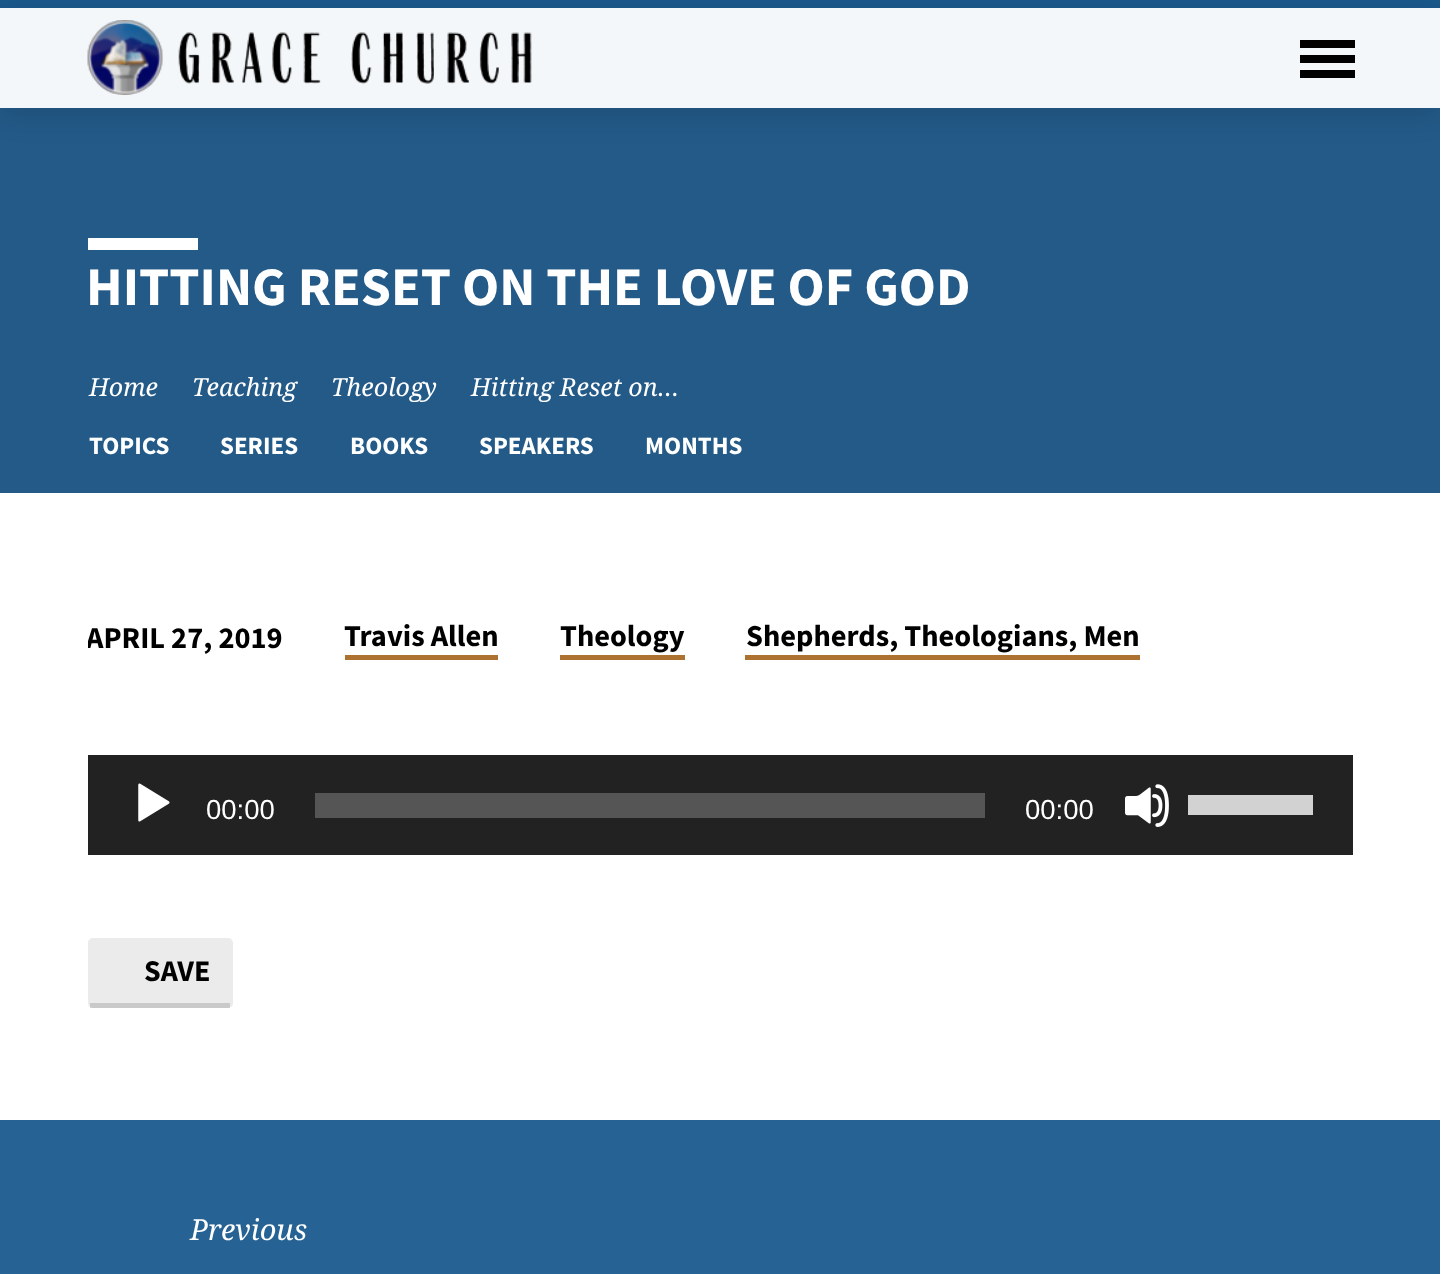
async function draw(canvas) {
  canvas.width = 1440;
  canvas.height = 1274;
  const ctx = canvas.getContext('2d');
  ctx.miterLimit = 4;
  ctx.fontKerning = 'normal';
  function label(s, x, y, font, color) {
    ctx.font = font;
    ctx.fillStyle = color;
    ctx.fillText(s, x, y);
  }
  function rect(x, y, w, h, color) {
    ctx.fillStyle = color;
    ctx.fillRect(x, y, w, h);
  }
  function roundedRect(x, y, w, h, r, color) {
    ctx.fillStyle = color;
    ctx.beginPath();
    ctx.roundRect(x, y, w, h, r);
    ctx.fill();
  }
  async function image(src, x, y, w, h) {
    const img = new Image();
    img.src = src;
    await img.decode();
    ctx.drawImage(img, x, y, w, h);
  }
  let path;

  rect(0, 0, 1440, 1274, '#fff');
  rect(0, 0, 1440, 8, '#1b5a8d');
  rect(0, 8, 1440, 100, '#f4f7f9');
  rect(0, 108, 1440, 385, '#235a88');
  ctx.save();
  path = new Path2D('M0 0H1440V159H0ZM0 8H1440V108H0Z');
  ctx.clip(path, 'evenodd');
  ctx.fillStyle = '#00000024';
  ctx.filter = 'blur(15px)';
  ctx.beginPath();
  ctx.rect(0, 13, 1440, 100);
  ctx.fill();
  ctx.filter = 'none';
  ctx.restore();
  await image('assets/img1.png', 87, 20, 445, 75);
  rect(1300, 40, 55, 8, '#000');
  rect(1300, 55, 55, 8, '#000');
  rect(1300, 70, 55, 8, '#000');
  rect(88, 238, 110, 12, '#fff');
  label('HITTING RESET ON THE LOVE OF GOD', 86, 305, 'bold 54.4px Source Sans Pro', '#fff');
  label('Home', 89, 396, 'italic 25px Noto Serif', '#fff');
  label('Teaching', 192, 396, 'italic 25px Noto Serif', '#fff');
  label('Theology', 331, 396, 'italic 25px Noto Serif', '#fff');
  label('Hitting Reset on…', 471, 396, 'italic 25px Noto Serif', '#fff');
  label('TOPICS', 89, 454, 'bold 25px Source Sans Pro', '#fff');
  label('SERIES', 220, 454, 'bold 25px Source Sans Pro', '#fff');
  label('BOOKS', 350, 454, 'bold 25px Source Sans Pro', '#fff');
  label('SPEAKERS', 479, 454, 'bold 25px Source Sans Pro', '#fff');
  label('MONTHS', 645, 454, 'bold 25px Source Sans Pro', '#fff');
  ctx.save();
  ctx.beginPath();
  ctx.rect(88, 605, 1265, 70);
  ctx.clip();
  label('APRIL 27, 2019', 86, 648, 'bold 30.4px Source Sans Pro', '#000');
  ctx.restore();
  label('Travis Allen', 344, 646, 'bold 30.4px Source Sans Pro', '#000');
  rect(345, 655, 153, 5, '#ad722f');
  label('Theology', 560, 646, 'bold 30.4px Source Sans Pro', '#000');
  rect(560, 655, 125, 5, '#ad722f');
  label('Shepherds, Theologians, Men', 746, 646, 'bold 30.4px Source Sans Pro', '#000');
  rect(745, 655, 395, 5, '#ad722f');
  rect(88, 755, 1265, 100, '#222');
  await image('assets/img2.png', 138, 783, 32, 39);
  label('00:00', 206, 819, '27.5px Liberation Sans', '#fff');
  rect(315, 793, 670, 25, '#555');
  label('00:00', 1025, 819, '27.5px Liberation Sans', '#fff');
  await image('assets/img3.png', 1125, 784, 44, 43);
  rect(1188, 795, 125, 20, '#d2d2d2');
  roundedRect(88, 938, 145, 70, 5, '#ebebeb');
  rect(90, 1003, 140, 5, '#3232322e');
  label('SAVE', 144, 981, 'bold 30px Source Sans Pro', '#000');
  rect(0, 1120, 1440, 154, '#266293');
  label('Previous', 190, 1240, 'italic 29px Noto Serif', '#fff');
}

draw(document.querySelector('canvas'));
